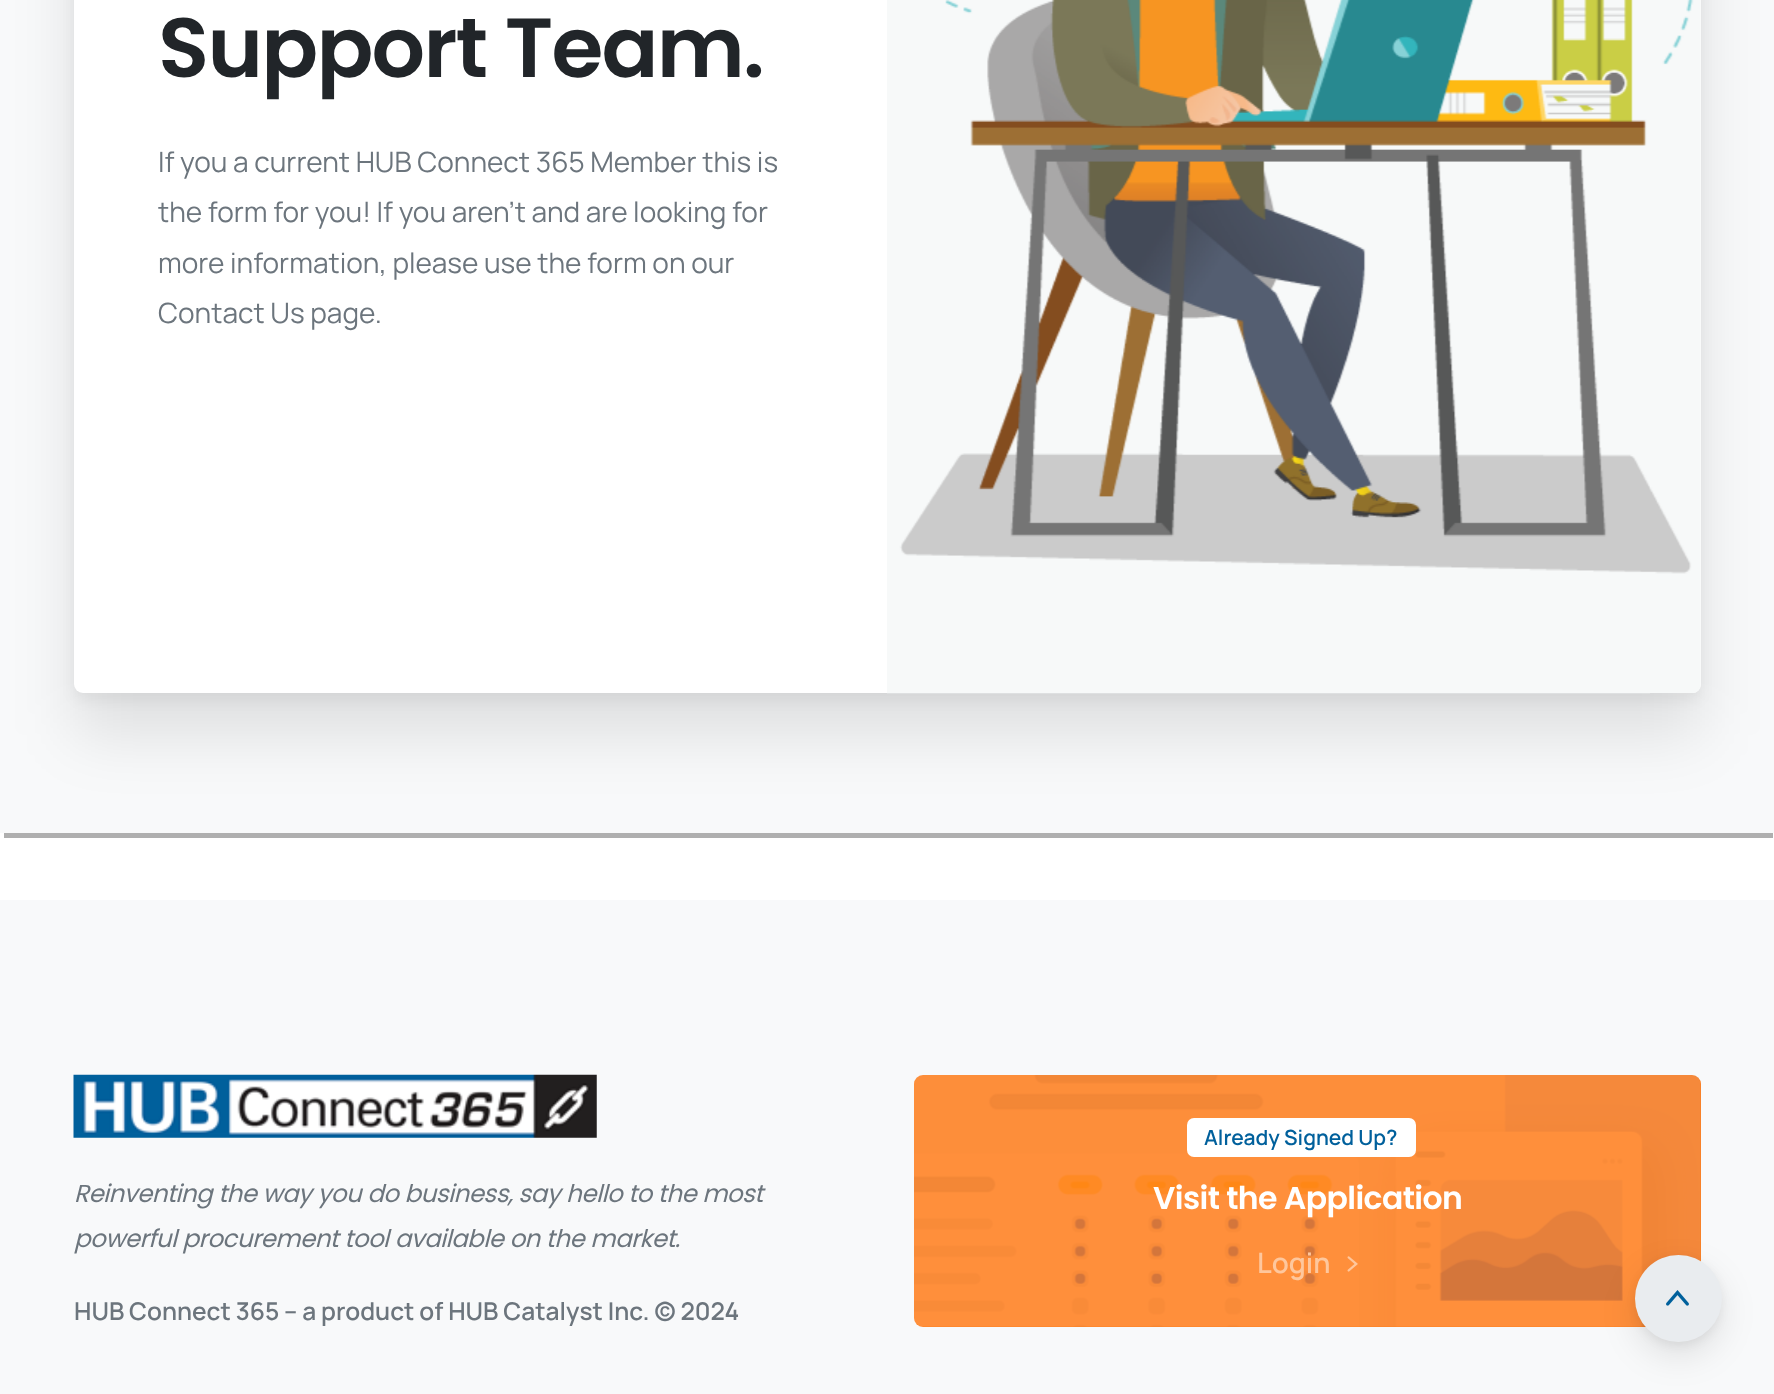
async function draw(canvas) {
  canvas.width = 1774;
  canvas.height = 1394;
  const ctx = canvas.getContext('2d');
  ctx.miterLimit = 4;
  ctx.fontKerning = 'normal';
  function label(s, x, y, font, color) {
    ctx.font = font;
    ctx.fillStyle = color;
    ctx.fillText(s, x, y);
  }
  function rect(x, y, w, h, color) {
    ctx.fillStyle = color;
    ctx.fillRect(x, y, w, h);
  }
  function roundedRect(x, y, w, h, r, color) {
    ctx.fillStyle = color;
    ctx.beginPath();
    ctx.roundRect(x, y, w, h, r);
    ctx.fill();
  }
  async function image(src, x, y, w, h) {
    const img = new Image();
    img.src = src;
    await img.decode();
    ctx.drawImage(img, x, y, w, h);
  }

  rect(0, 0, 1774, 1394, '#fff');
  rect(0, 0, 1774, 833, '#f8f9fa');
  ctx.fillStyle = '#0000001a';
  ctx.filter = 'blur(31px)';
  ctx.beginPath();
  ctx.roundRect(74, -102, 1627, 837, 9);
  ctx.fill();
  ctx.filter = 'none';
  ctx.fillStyle = '#0000000d';
  ctx.filter = 'blur(7px)';
  ctx.beginPath();
  ctx.roundRect(74, -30, 1627, 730, 9);
  ctx.fill();
  ctx.filter = 'none';
  roundedRect(74, -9, 1627, 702, 9, '#fff');
  ctx.letterSpacing = '-1.75px';
  label('Support Team.', 158, 77, '600 84px Poppins', '#212529');
  ctx.letterSpacing = '0px';
  label('If you a current HUB Connect 365 Member this is', 158, 172, '28px Manrope', '#6c757d');
  label('the form for you! If you aren’t and are looking for', 158, 222, '28px Manrope', '#6c757d');
  label('more information, please use the form on our', 158, 273, '28px Manrope', '#6c757d');
  label('Contact Us page.', 158, 323, '28px Manrope', '#6c757d');
  await image('assets/img1.png', 887, 0, 814, 694);
  rect(4, 833, 1769, 5, '#afafaf');
  rect(0, 900, 1774, 494, '#f8f9fa');
  await image('assets/img2.png', 73, 1074, 524, 64);
  ctx.letterSpacing = '-0.5px';
  label('Reinventing the way you do business, say hello to the most', 74, 1202, 'italic 24.5px Poppins', '#6c757d');
  label('powerful procurement tool available on the market.', 74, 1247, 'italic 24.5px Poppins', '#6c757d');
  ctx.letterSpacing = '0px';
  label('HUB Connect 365 – a product of HUB Catalyst Inc. © 2024', 74, 1320, '600 24.5px Manrope', '#6c757d');
  roundedRect(914, 1075, 787, 252, 9, '#ff740a');
  await image('assets/img3.png', 914, 1075, 787, 252);
  roundedRect(1187, 1118, 229, 39, 7, '#fff');
  label('Already Signed Up?', 1204, 1145, '600 21px Manrope', '#00609c');
  ctx.letterSpacing = '-0.6px';
  label('Visit the Application', 1153, 1209, '600 31.5px Poppins', '#fff');
  ctx.letterSpacing = '0px';
  label('Login', 1257, 1273, '600 28px Manrope', '#fec79d');
  await image('assets/img4.png', 1347, 1256, 11, 16);
  ctx.fillStyle = '#0000001a';
  ctx.filter = 'blur(17px)';
  ctx.beginPath();
  ctx.roundRect(1635, 1269, 87, 87, 43.5);
  ctx.fill();
  ctx.filter = 'none';
  ctx.fillStyle = '#0000000d';
  ctx.filter = 'blur(5px)';
  ctx.beginPath();
  ctx.roundRect(1635, 1258, 87, 88, 43.5);
  ctx.fill();
  ctx.filter = 'none';
  ctx.fillStyle = '#e9ecef';
  ctx.beginPath();
  ctx.arc(1678.5, 1298.5, 43.5, 0, 2 * Math.PI);
  ctx.fill();
  await image('assets/img5.png', 1666, 1290, 23, 16);
}

draw(document.querySelector('canvas'));
